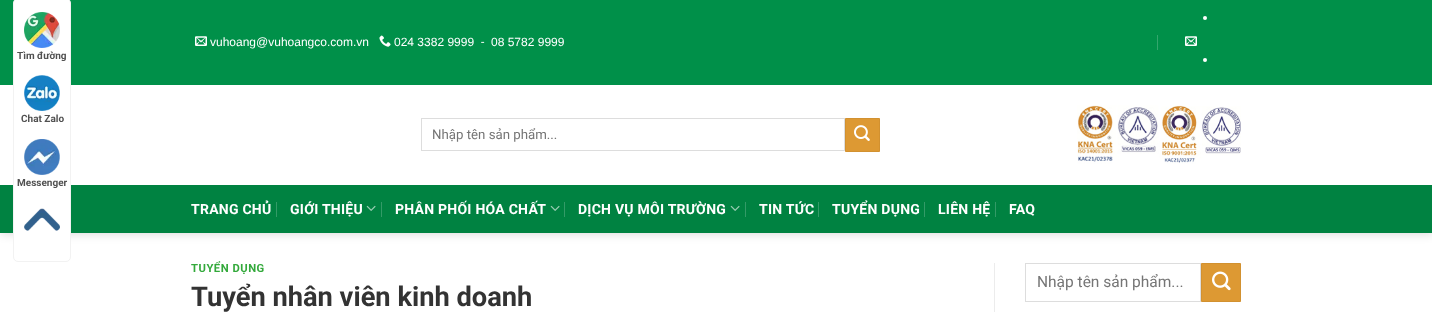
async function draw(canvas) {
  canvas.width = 1432;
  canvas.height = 312;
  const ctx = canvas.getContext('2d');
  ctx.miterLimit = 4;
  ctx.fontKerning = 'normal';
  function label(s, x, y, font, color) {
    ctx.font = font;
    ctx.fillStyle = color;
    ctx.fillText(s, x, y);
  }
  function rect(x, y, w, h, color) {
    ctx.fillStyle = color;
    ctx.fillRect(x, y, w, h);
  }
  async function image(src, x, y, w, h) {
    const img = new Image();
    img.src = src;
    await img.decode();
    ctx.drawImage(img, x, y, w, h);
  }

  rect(0, 0, 1432, 312, '#fff');
  ctx.fillStyle = '#00000026';
  ctx.filter = 'blur(5px)';
  ctx.beginPath();
  ctx.rect(1, 1, 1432, 233);
  ctx.fill();
  ctx.filter = 'none';
  rect(0, 0, 1432, 85, '#009049');
  rect(0, 85, 1432, 100, '#fff');
  rect(0, 185, 1432, 48, '#008241');
  ctx.fillStyle = '#fff';
  ctx.beginPath();
  ctx.roundRect(13.5, -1.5, 57, 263, 4.5);
  ctx.fill();
  ctx.strokeStyle = '#f2f2f2';
  ctx.stroke();
  await image('assets/img1.png', 24, 12, 36, 36);
  label('Tìm đường', 17, 59, 'bold 10px Roboto', '#515151');
  await image('assets/img2.png', 24, 75, 36, 36);
  label('Chat Zalo', 21, 122, 'bold 10px Roboto', '#515151');
  await image('assets/img3.png', 24, 139, 36, 36);
  label('Messenger', 17, 186, 'bold 10px Roboto', '#515151');
  await image('assets/img4.png', 24, 208, 36, 23);
  await image('assets/img5.png', 195, 36, 12, 10);
  label('vuhoang@vuhoangco.com.vn', 210, 46, '12px Liberation Sans', '#fff');
  await image('assets/img6.png', 379, 35, 12, 12);
  label('024 3382 9999', 394, 46, '12px Liberation Sans', '#fff');
  label('-', 481, 46, '12px Roboto', '#fff');
  label('08 5782 9999', 491, 46, '12px Liberation Sans', '#fff');
  rect(1157, 35, 1, 15, '#33a66d');
  await image('assets/img5.png', 1185, 36, 12, 10);
  ctx.fillStyle = '#fff';
  ctx.beginPath();
  ctx.arc(1205, 18, 2, 0, 2 * Math.PI);
  ctx.fill();
  ctx.beginPath();
  ctx.arc(1205, 60, 2, 0, 2 * Math.PI);
  ctx.fill();
  ctx.strokeStyle = '#ddd';
  ctx.strokeRect(421.5, 118.5, 423, 32);
  label('Nhập tên sản phẩm...', 432, 139, '13.25px Roboto', '#757575');
  ctx.fillStyle = '#d93';
  ctx.beginPath();
  ctx.rect(845.5, 118.5, 34, 33);
  ctx.fill();
  ctx.strokeStyle = '#d29130';
  ctx.stroke();
  await image('assets/img7.png', 854, 125, 16, 16);
  await image('assets/img8.png', 1077, 105, 164, 59);
  ctx.letterSpacing = '0.25px';
  label('TRANG CHỦ', 191, 214, 'bold 14px Roboto', '#fff');
  rect(276, 202, 1, 15, '#339b67');
  label('GIỚI THIỆU', 290, 214, 'bold 14px Roboto', '#fff');
  await image('assets/img9.png', 366, 205, 10, 6);
  rect(381, 202, 1, 15, '#339b67');
  label('PHÂN PHỐI HÓA CHẤT', 395, 214, 'bold 14px Roboto', '#fff');
  await image('assets/img9.png', 550, 205, 10, 6);
  rect(564, 202, 1, 15, '#339b67');
  label('DỊCH VỤ MÔI TRƯỜNG', 578, 214, 'bold 14px Roboto', '#fff');
  await image('assets/img9.png', 730, 205, 10, 6);
  rect(745, 202, 1, 15, '#339b67');
  label('TIN TỨC', 759, 214, 'bold 14px Roboto', '#fff');
  rect(818, 202, 1, 15, '#339b67');
  label('TUYỂN DỤNG', 832, 214, 'bold 14px Roboto', '#fff');
  rect(924, 202, 1, 15, '#339b67');
  label('LIÊN HỆ', 938, 214, 'bold 14px Roboto', '#fff');
  rect(995, 202, 1, 15, '#339b67');
  label('FAQ', 1009, 214, 'bold 14px Roboto', '#fff');
  ctx.letterSpacing = '0.5px';
  label('TUYỂN DỤNG', 191, 272, 'bold 11.25px Roboto', '#33a93b');
  ctx.letterSpacing = '0px';
  label('Tuyển nhân viên kinh doanh', 191, 306, 'bold 27.25px Roboto', '#333');
  rect(994, 263, 1, 49, '#ececec');
  ctx.strokeStyle = '#ddd';
  ctx.strokeRect(1025.5, 263.5, 175, 38);
  label('Nhập tên sản phẩm...', 1037, 287, '15.5px Roboto', '#757575');
  ctx.fillStyle = '#d93';
  ctx.beginPath();
  ctx.rect(1201.5, 263.5, 39, 38);
  ctx.fill();
  ctx.strokeStyle = '#d29130';
  ctx.stroke();
  await image('assets/img10.png', 1212, 271, 19, 20);
}

draw(document.querySelector('canvas'));
